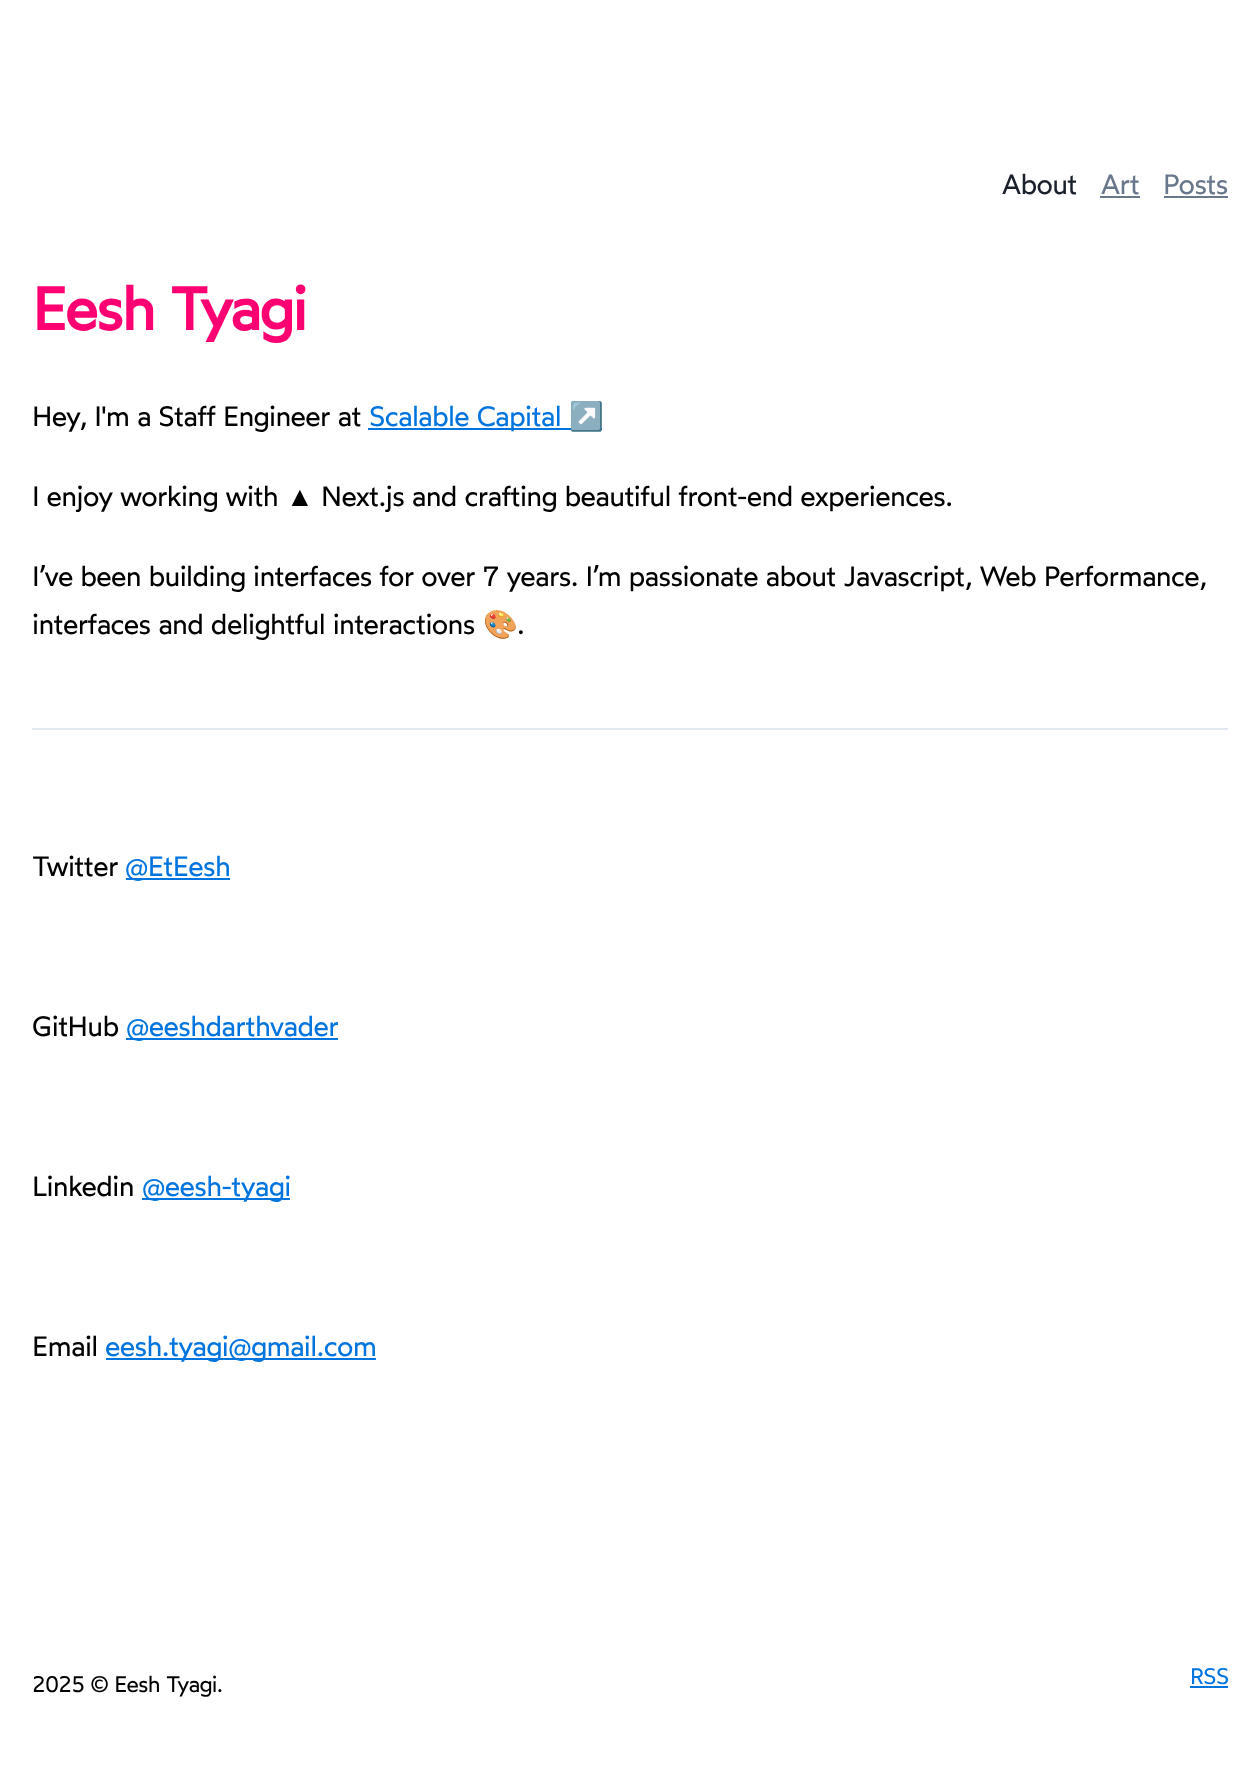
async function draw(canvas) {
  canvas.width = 1259;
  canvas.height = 1777;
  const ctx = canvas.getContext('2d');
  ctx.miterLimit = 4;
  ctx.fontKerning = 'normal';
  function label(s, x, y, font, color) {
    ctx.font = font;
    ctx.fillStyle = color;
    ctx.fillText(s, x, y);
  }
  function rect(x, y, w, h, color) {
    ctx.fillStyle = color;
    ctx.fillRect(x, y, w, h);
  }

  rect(0, 0, 1259, 1777, '#fff');
  ctx.letterSpacing = '-0.65px';
  label('About', 1002, 194, '28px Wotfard', '#1a202c');
  label('Art', 1101, 194, '28px Wotfard', '#69778c');
  rect(1100, 196, 40, 2, '#69778c');
  label('Posts', 1163, 194, '28px Wotfard', '#69778c');
  rect(1164, 196, 64, 2, '#69778c');
  ctx.letterSpacing = '-1.75px';
  label('Eesh Tyagi', 32, 330, 'bold 60px Wotfard', '#ff0073');
  ctx.letterSpacing = '-0.65px';
  label('Hey, I\'m a Staff Engineer at', 32, 426, '28px Wotfard', '#000');
  rect(368, 428, 234, 2, '#0074de');
  label('Scalable Capital', 369, 426, '28px Wotfard', '#0074de');
  label('↗', 569, 426, '28px Noto Color Emoji', '#0074de');
  label('I enjoy working with', 32, 506, '28px Wotfard', '#000');
  label('▲', 286, 506, '28px Liberation Sans', '#000');
  label('Next.js and crafting beautiful front-end experiences.', 321, 506, '28px Wotfard', '#000');
  label('I’ve been building interfaces for over 7 years. I’m passionate about Javascript, Web Performance,', 32, 586, '28px Wotfard', '#000');
  label('interfaces and delightful interactions', 32, 634, '28px Wotfard', '#000');
  label('🎨', 483, 634, '28px Noto Color Emoji', '#000');
  label('.', 517, 634, '28px Wotfard', '#000');
  rect(32, 728, 1196, 2, '#e2e8f0');
  label('Twitter', 32, 876, '28px Wotfard', '#000');
  rect(126, 878, 104, 2, '#0074de');
  label('@EtEesh', 125, 876, '28px Wotfard', '#0074de');
  label('GitHub', 32, 1036, '28px Wotfard', '#000');
  rect(126, 1038, 212, 2, '#0074de');
  label('@eeshdarthvader', 126, 1036, '28px Wotfard', '#0074de');
  label('Linkedin', 32, 1196, '28px Wotfard', '#000');
  rect(142, 1198, 148, 2, '#0074de');
  label('@eesh-tyagi', 142, 1196, '28px Wotfard', '#0074de');
  label('Email', 32, 1356, '28px Wotfard', '#000');
  rect(106, 1358, 270, 2, '#0074de');
  label('eesh.tyagi@gmail.com', 105, 1356, '28px Wotfard', '#0074de');
  label('2025 © Eesh Tyagi.', 32, 1692, '22.5px Wotfard', '#000');
  label('RSS', 1190, 1684, '22.5px Wotfard', '#0074de');
  rect(1190, 1686, 38, 2, '#0074de');
}

draw(document.querySelector('canvas'));
